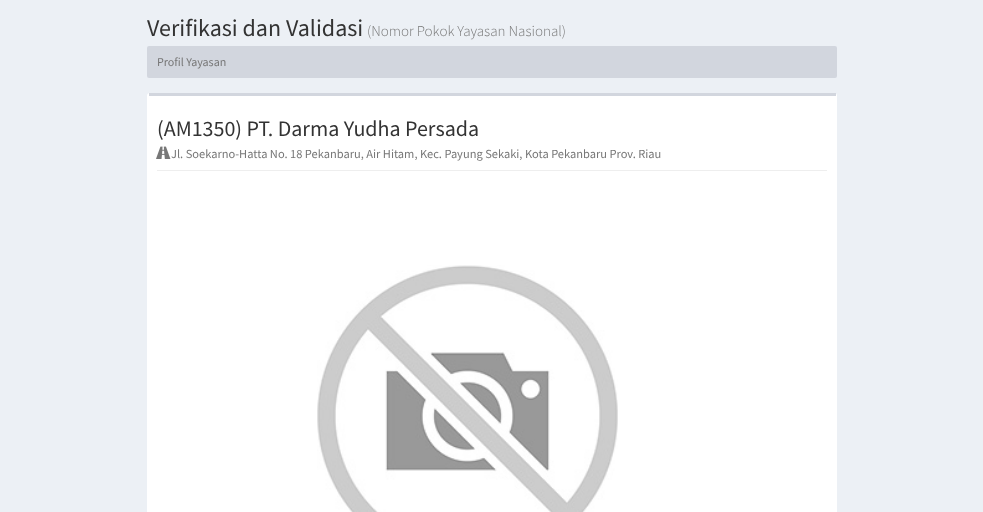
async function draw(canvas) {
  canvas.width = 983;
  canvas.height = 512;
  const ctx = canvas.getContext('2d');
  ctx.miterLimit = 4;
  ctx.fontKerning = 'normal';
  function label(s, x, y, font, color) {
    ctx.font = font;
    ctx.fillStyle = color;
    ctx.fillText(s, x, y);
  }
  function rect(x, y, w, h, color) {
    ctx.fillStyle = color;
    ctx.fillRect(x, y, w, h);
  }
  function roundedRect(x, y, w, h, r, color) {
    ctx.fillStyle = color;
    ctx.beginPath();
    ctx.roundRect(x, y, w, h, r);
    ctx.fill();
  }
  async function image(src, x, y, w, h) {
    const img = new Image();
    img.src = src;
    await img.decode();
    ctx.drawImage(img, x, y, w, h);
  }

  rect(0, 0, 983, 512, '#ecf0f5');
  label('Verifikasi dan Validasi', 147, 36, '24px Source Sans Pro', '#333');
  label('(Nomor Pokok Yayasan Nasional)', 367, 36, '300 15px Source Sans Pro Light', '#777');
  roundedRect(147, 46, 690, 32, 2, '#d2d6de');
  label('Profil Yayasan', 157, 66, '12px Source Sans Pro', '#777');
  roundedRect(147, 93, 690, 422, 3, '#fff');
  rect(149, 93, 687, 3, '#d2d6de');
  rect(157, 170, 670, 1, '#eee');
  label('(AM1350) PT. Darma Yudha Persada', 157, 136, '22px Source Sans Pro', '#333');
  await image('assets/img1.png', 156, 146, 15, 13);
  label('Jl. Soekarno-Hatta No. 18 Pekanbaru, Air Hitam, Kec. Payung Sekaki, Kota Pekanbaru Prov. Riau', 171, 158, '12.4px Source Sans Pro', '#777');
  await image('assets/img2.png', 317, 265, 301, 247);
}

draw(document.querySelector('canvas'));
